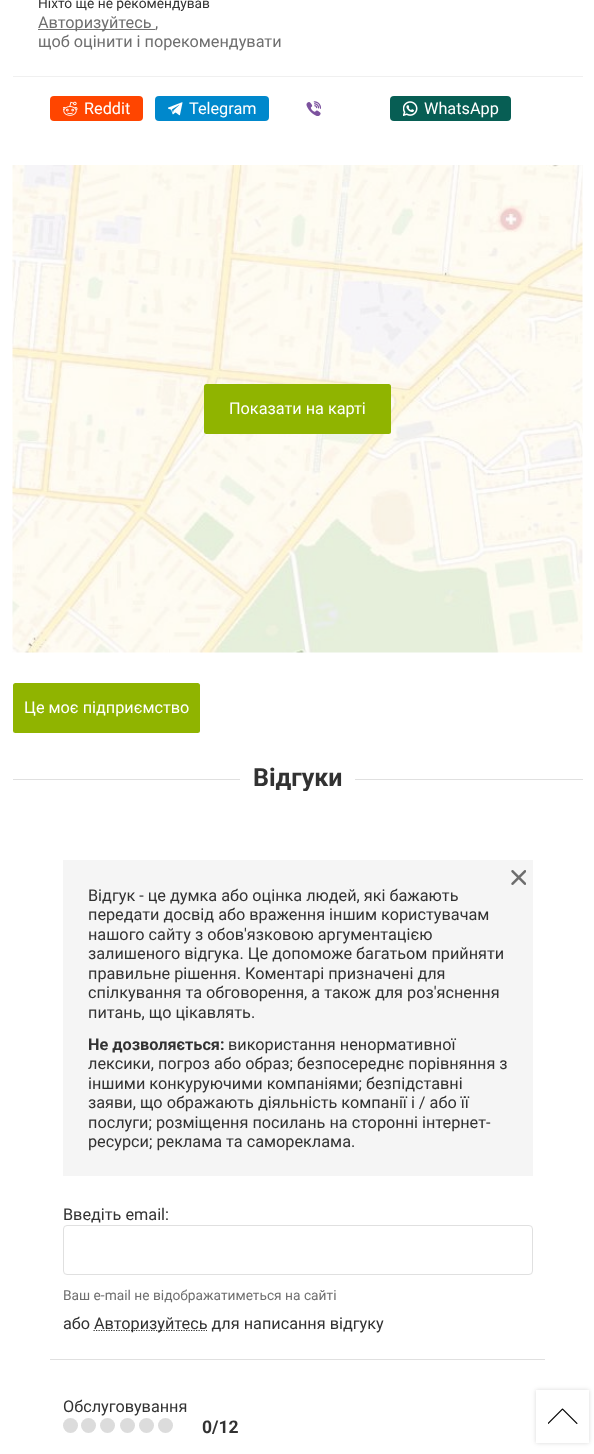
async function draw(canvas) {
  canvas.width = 594;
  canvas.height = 1454;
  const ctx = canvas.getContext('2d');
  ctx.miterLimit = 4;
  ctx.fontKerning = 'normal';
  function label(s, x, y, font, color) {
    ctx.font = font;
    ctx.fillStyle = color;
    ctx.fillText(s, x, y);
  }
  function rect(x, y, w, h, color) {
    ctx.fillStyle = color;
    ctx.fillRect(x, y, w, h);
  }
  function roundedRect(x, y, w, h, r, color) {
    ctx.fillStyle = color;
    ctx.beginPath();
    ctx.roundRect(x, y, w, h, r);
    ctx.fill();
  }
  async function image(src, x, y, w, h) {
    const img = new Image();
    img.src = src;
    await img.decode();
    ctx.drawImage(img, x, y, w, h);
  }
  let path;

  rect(0, 0, 594, 1454, '#fff');
  label('Ніхто ще не рекомендував', 38, 8, '13.75px Roboto', '#323232');
  rect(38, 29, 117, 1, '#707070');
  label('Авторизуйтесь', 38, 28, '16.25px Roboto', '#6f6f6f');
  label(',', 155, 28, '16.25px Roboto', '#6f6f6f');
  label('щоб оцінити і порекомендувати', 38, 47, '16.25px Roboto', '#6f6f6f');
  rect(13, 76, 570, 1, '#f0f0f0');
  roundedRect(50, 96, 93, 25, 4, '#ff4500');
  await image('assets/img1.png', 63, 101, 15, 15);
  label('Reddit', 84, 114, '16.25px Roboto', '#fff');
  roundedRect(155, 96, 114, 25, 4, '#08c');
  await image('assets/img2.png', 168, 102, 15, 14);
  label('Telegram', 189, 114, '16.25px Roboto', '#fff');
  await image('assets/img3.png', 306, 101, 15, 15);
  roundedRect(390, 96, 121, 25, 4, '#075e54');
  await image('assets/img4.png', 403, 101, 15, 15);
  label('WhatsApp', 424, 114, '16.25px Roboto', '#fff');
  await image('assets/img5.png', 12, 165, 571, 488);
  roundedRect(204, 384, 187, 50, 2.5, '#90b400');
  label('Показати на карті', 229, 414, '16.25px Roboto', '#fff');
  roundedRect(13, 683, 187, 50, 2.5, '#90b400');
  label('Це моє підприємство', 24, 713, '16.25px Roboto', '#fff');
  rect(13, 779, 227, 1, '#e0e0e0');
  ctx.save();
  ctx.beginPath();
  ctx.rect(13, 761, 570, 30);
  ctx.clip();
  label('Відгуки', 253, 786, 'bold 25px Roboto', '#323232');
  ctx.restore();
  rect(355, 779, 228, 1, '#e0e0e0');
  rect(63, 860, 470, 316, '#f5f5f5');
  await image('assets/img6.png', 511, 870, 15, 15);
  label('Відгук - це думка або оцінка людей, які бажають', 88, 901, '16.25px Roboto', '#323232');
  label('передати досвід або враження іншим користувачам', 88, 920, '16.25px Roboto', '#323232');
  label('нашого сайту з обов\'язковою аргументацією', 88, 940, '16.25px Roboto', '#323232');
  label('залишеного відгука. Це допоможе багатьом прийняти', 88, 959, '16.25px Roboto', '#323232');
  label('правильне рішення. Коментарі призначені для', 88, 979, '16.25px Roboto', '#323232');
  label('спілкування та обговорення, а також для роз\'яснення', 88, 998, '16.25px Roboto', '#323232');
  label('питань, що цікавлять.', 88, 1018, '16.25px Roboto', '#323232');
  label('Не дозволяється:', 88, 1050, 'bold 16.25px Roboto', '#323232');
  label('використання ненормативної', 228, 1050, '16.25px Roboto', '#323232');
  label('лексики, погроз або образ; безпосереднє порівняння з', 88, 1069, '16.25px Roboto', '#323232');
  label('іншими конкуруючими компаніями; безпідставні', 88, 1089, '16.25px Roboto', '#323232');
  label('заяви, що ображають діяльність компанії і / або її', 88, 1108, '16.25px Roboto', '#323232');
  label('послуги; розміщення посилань на сторонні інтернет-', 88, 1128, '16.25px Roboto', '#323232');
  label('ресурси; реклама та самореклама.', 88, 1147, '16.25px Roboto', '#323232');
  rect(50, 1359, 495, 1, '#e0e0e0');
  label('Введіть email:', 63, 1220, '16.25px Roboto', '#323232');
  ctx.beginPath();
  ctx.roundRect(63.5, 1225.5, 469, 49, 3.5);
  ctx.strokeStyle = '#e0e0e0';
  ctx.stroke();
  label('Ваш e-mail не відображатиметься на сайті', 63, 1300, '13.75px Roboto', '#6f6f6f');
  label('або', 63, 1329, '16.25px Roboto', '#323232');
  path = new Path2D('M93.5 1330.5H207');
  ctx.strokeStyle = '#323232';
  ctx.lineWidth = 1.2;
  ctx.setLineDash([1.25, 1.25]);
  ctx.stroke(path);
  label('Авторизуйтесь для написання відгуку', 94, 1329, '16.25px Roboto', '#323232');
  label('Обслуговування', 63, 1412, '16.25px Roboto', '#323232');
  ctx.fillStyle = '#dcdcdc';
  ctx.beginPath();
  ctx.arc(70.5, 1425.5, 7.5, 0, 2 * Math.PI);
  ctx.fill();
  ctx.beginPath();
  ctx.arc(88.5, 1425.5, 7.5, 0, 2 * Math.PI);
  ctx.fill();
  ctx.beginPath();
  ctx.arc(107.5, 1425.5, 7.5, 0, 2 * Math.PI);
  ctx.fill();
  ctx.beginPath();
  ctx.arc(127.5, 1425.5, 7.5, 0, 2 * Math.PI);
  ctx.fill();
  ctx.beginPath();
  ctx.arc(146.5, 1425.5, 7.5, 0, 2 * Math.PI);
  ctx.fill();
  ctx.beginPath();
  ctx.arc(165.5, 1425.5, 7.5, 0, 2 * Math.PI);
  ctx.fill();
  label('0/12', 202, 1433, 'bold 17.5px Roboto', '#323232');
  ctx.fillStyle = '#63636340';
  ctx.filter = 'blur(2px)';
  ctx.beginPath();
  ctx.rect(536, 1390, 53, 53);
  ctx.fill();
  ctx.filter = 'none';
  rect(536, 1390, 53, 53, '#fff');
  await image('assets/img7.png', 548, 1408, 30, 16);
}

draw(document.querySelector('canvas'));
